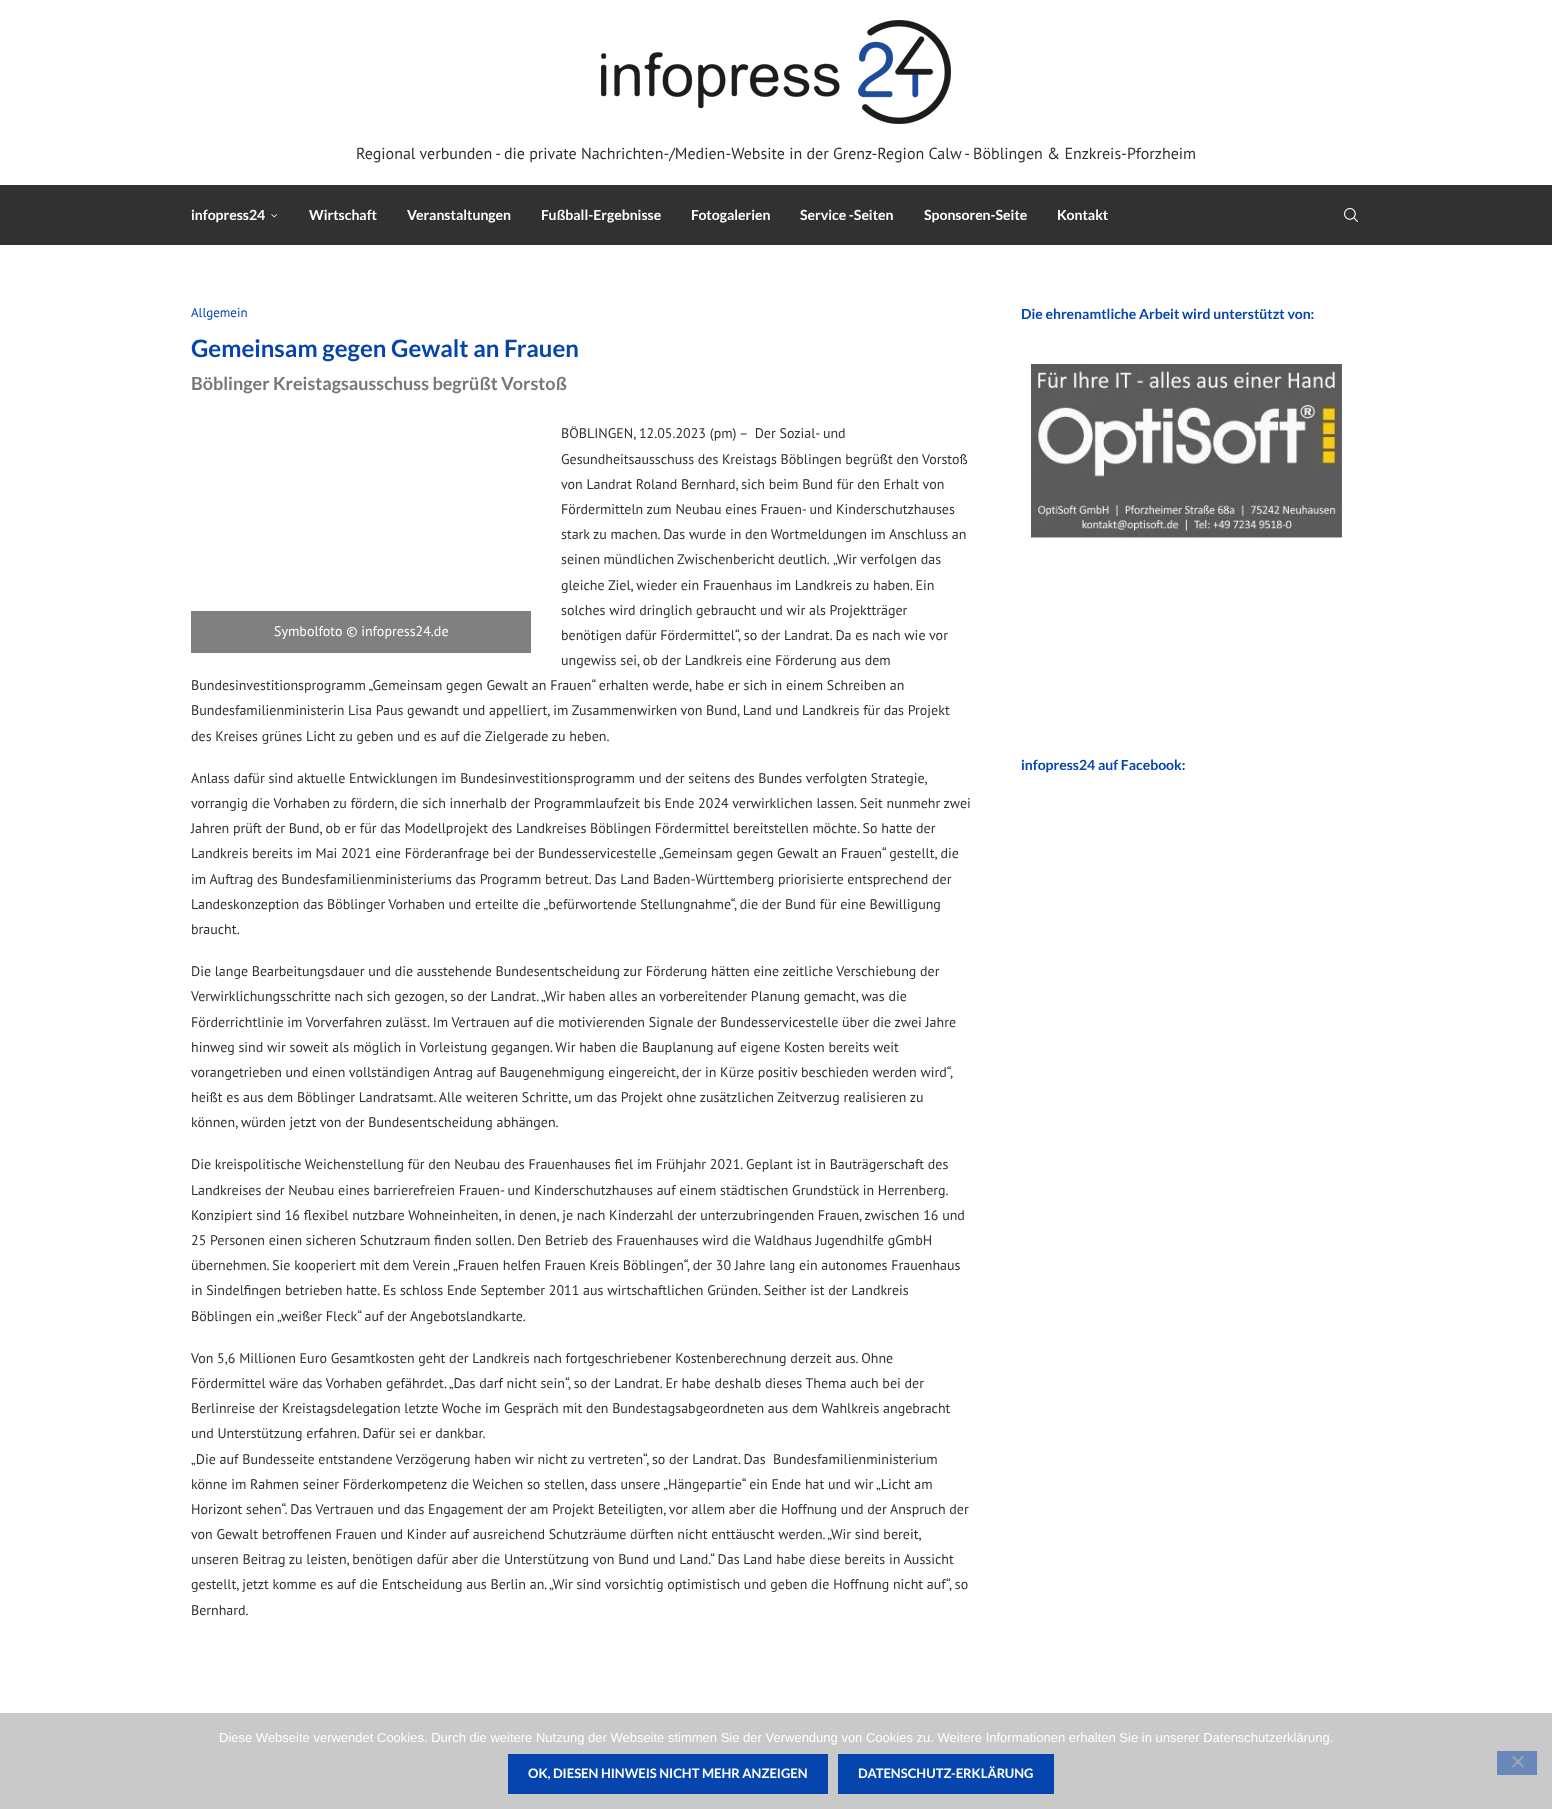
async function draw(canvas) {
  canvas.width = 1552;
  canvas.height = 1809;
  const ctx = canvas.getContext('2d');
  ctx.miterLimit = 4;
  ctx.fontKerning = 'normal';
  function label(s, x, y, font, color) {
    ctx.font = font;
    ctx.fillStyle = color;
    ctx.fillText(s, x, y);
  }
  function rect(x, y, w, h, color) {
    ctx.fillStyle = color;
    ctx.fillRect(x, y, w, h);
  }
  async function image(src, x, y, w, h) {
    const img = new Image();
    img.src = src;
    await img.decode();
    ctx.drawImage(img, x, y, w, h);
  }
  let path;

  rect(0, 0, 1552, 1809, '#fff');
  await image('assets/img1.png', 601, 20, 350, 104);
  label('Regional verbunden - die private Nachrichten-/Medien-Website in der Grenz-Region Calw - Böblingen & Enzkreis-Pforzheim', 356, 159, '16px PT Sans', '#313131');
  rect(0, 185, 1552, 60, '#313131');
  label('infopress24', 191, 220, 'bold 14px Lato', '#fff');
  await image('assets/img2.png', 271, 214, 7, 4);
  label('Wirtschaft', 309, 220, 'bold 14px Lato', '#fff');
  label('Veranstaltungen', 407, 220, 'bold 14px Lato', '#fff');
  label('Fußball-Ergebnisse', 541, 220, 'bold 14px Lato', '#fff');
  label('Fotogalerien', 691, 220, 'bold 14px Lato', '#fff');
  label('Service -Seiten', 800, 220, 'bold 14px Lato', '#fff');
  label('Sponsoren-Seite', 924, 220, 'bold 14px Lato', '#fff');
  label('Kontakt', 1057, 220, 'bold 14px Lato', '#fff');
  await image('assets/img3.png', 1344, 208, 14, 14);
  label('Allgemein', 191, 317, '13px PT Sans', '#0645ad');
  label('Gemeinsam gegen Gewalt an Frauen', 191, 357, 'bold 24px Lato', '#0645ad');
  label('Böblinger Kreistagsausschuss begrüßt Vorstoß', 191, 390, 'bold 18px Lato', '#777');
  label('BÖBLINGEN, 12.05.2023 (pm) –  Der Sozial- und', 561, 438, '14px PT Sans', '#313131');
  label('Gesundheitsausschuss des Kreistags Böblingen begrüßt den Vorstoß', 561, 464, '14px PT Sans', '#313131');
  label('von Landrat Roland Bernhard, sich beim Bund für den Erhalt von', 561, 489, '14px PT Sans', '#313131');
  label('Fördermitteln zum Neubau eines Frauen- und Kinderschutzhauses', 561, 514, '14px PT Sans', '#313131');
  label('stark zu machen. Das wurde in den Wortmeldungen im Anschluss an', 561, 539, '14px PT Sans', '#313131');
  ctx.wordSpacing = '-0.5px';
  label('seinen mündlichen Zwischenbericht deutlich.', 561, 564, '14px PT Sans', '#313131');
  ctx.wordSpacing = '0px';
  label('„Wir verfolgen das', 833, 564, '14px PT Sans', '#313131');
  label('gleiche Ziel, wieder ein Frauenhaus im Landkreis zu haben. Ein', 561, 590, '14px PT Sans', '#313131');
  label('solches wird dringlich gebraucht und wir als Projektträger', 561, 615, '14px PT Sans', '#313131');
  label('benötigen dafür Fördermittel“, so der Landrat. Da es nach wie vor', 561, 640, '14px PT Sans', '#313131');
  label('ungewiss sei, ob der Landkreis eine Förderung aus dem', 561, 665, '14px PT Sans', '#313131');
  label('Bundesinvestitionsprogramm „Gemeinsam gegen Gewalt an Frauen“ erhalten werde, habe er sich in einem Schreiben an', 191, 690, '14px PT Sans', '#313131');
  label('Bundesfamilienministerin Lisa Paus gewandt und appelliert, im Zusammenwirken von Bund, Land und Landkreis für das Projekt', 191, 715, '14px PT Sans', '#313131');
  label('des Kreises grünes Licht zu geben und es auf die Zielgerade zu heben.', 191, 741, '14px PT Sans', '#313131');
  rect(191, 611, 340, 42, '#808080');
  label('Symbolfoto © infopress24.de', 274, 636, '14px PT Sans', '#fff');
  label('Anlass dafür sind aktuelle Entwicklungen im Bundesinvestitionsprogramm und der seitens des Bundes verfolgten Strategie,', 191, 783, '14px PT Sans', '#313131');
  label('vorrangig die Vorhaben zu fördern, die sich innerhalb der Programmlaufzeit bis Ende 2024 verwirklichen lassen. Seit nunmehr zwei', 191, 808, '14px PT Sans', '#313131');
  label('Jahren prüft der Bund, ob er für das Modellprojekt des Landkreises Böblingen Fördermittel bereitstellen möchte. So hatte der', 191, 833, '14px PT Sans', '#313131');
  label('Landkreis bereits im Mai 2021 eine Förderanfrage bei der Bundesservicestelle „Gemeinsam gegen Gewalt an Frauen“ gestellt, die', 191, 858, '14px PT Sans', '#313131');
  label('im Auftrag des Bundesfamilienministeriums das Programm betreut. Das Land Baden-Württemberg priorisierte entsprechend der', 191, 884, '14px PT Sans', '#313131');
  label('Landeskonzeption das Böblinger Vorhaben und erteilte die „befürwortende Stellungnahme“, die der Bund für eine Bewilligung', 191, 909, '14px PT Sans', '#313131');
  label('braucht.', 191, 934, '14px PT Sans', '#313131');
  label('Die lange Bearbeitungsdauer und die ausstehende Bundesentscheidung zur Förderung hätten eine zeitliche Verschiebung der', 191, 976, '14px PT Sans', '#313131');
  label('Verwirklichungsschritte nach sich gezogen, so der Landrat. „Wir haben alles an vorbereitender Planung gemacht, was die', 191, 1001, '14px PT Sans', '#313131');
  label('Förderrichtlinie im Vorverfahren zulässt. Im Vertrauen auf die motivierenden Signale der Bundesservicestelle über die zwei Jahre', 191, 1027, '14px PT Sans', '#313131');
  label('hinweg sind wir soweit als möglich in Vorleistung gegangen. Wir haben die Bauplanung auf eigene Kosten bereits weit', 191, 1052, '14px PT Sans', '#313131');
  label('vorangetrieben und einen vollständigen Antrag auf Baugenehmigung eingereicht, der in Kürze positiv beschieden werden wird“,', 191, 1077, '14px PT Sans', '#313131');
  label('heißt es aus dem Böblinger Landratsamt. Alle weiteren Schritte, um das Projekt ohne zusätzlichen Zeitverzug realisieren zu', 191, 1102, '14px PT Sans', '#313131');
  label('können, würden jetzt von der Bundesentscheidung abhängen.', 191, 1127, '14px PT Sans', '#313131');
  label('Die kreispolitische Weichenstellung für den Neubau des Frauenhauses fiel im Frühjahr 2021. Geplant ist in Bauträgerschaft des', 191, 1169, '14px PT Sans', '#313131');
  label('Landkreises der Neubau eines barrierefreien Frauen- und Kinderschutzhauses auf einem städtischen Grundstück in Herrenberg.', 191, 1195, '14px PT Sans', '#313131');
  label('Konzipiert sind 16 flexibel nutzbare Wohneinheiten, in denen, je nach Kinderzahl der unterzubringenden Frauen, zwischen 16 und', 191, 1220, '14px PT Sans', '#313131');
  label('25 Personen einen sicheren Schutzraum finden sollen. Den Betrieb des Frauenhauses wird die Waldhaus Jugendhilfe gGmbH', 191, 1245, '14px PT Sans', '#313131');
  label('übernehmen. Sie kooperiert mit dem Verein „Frauen helfen Frauen Kreis Böblingen“, der 30 Jahre lang ein autonomes Frauenhaus', 191, 1270, '14px PT Sans', '#313131');
  label('in Sindelfingen betrieben hatte. Es schloss Ende September 2011 aus wirtschaftlichen Gründen. Seither ist der Landkreis', 191, 1295, '14px PT Sans', '#313131');
  label('Böblingen ein „weißer Fleck“ auf der Angebotslandkarte.', 191, 1321, '14px PT Sans', '#313131');
  label('Von 5,6 Millionen Euro Gesamtkosten geht der Landkreis nach fortgeschriebener Kostenberechnung derzeit aus. Ohne', 191, 1363, '14px PT Sans', '#313131');
  label('Fördermittel wäre das Vorhaben gefährdet. „Das darf nicht sein“, so der Landrat. Er habe deshalb dieses Thema auch bei der', 191, 1388, '14px PT Sans', '#313131');
  label('Berlinreise der Kreistagsdelegation letzte Woche im Gespräch mit den Bundestagsabgeordneten aus dem Wahlkreis angebracht', 191, 1413, '14px PT Sans', '#313131');
  label('und Unterstützung erfahren. Dafür sei er dankbar.', 191, 1438, '14px PT Sans', '#313131');
  label('„Die auf Bundesseite entstandene Verzögerung haben wir nicht zu vertreten“, so der Landrat. Das  Bundesfamilienministerium', 191, 1464, '14px PT Sans', '#313131');
  label('könne im Rahmen seiner Förderkompetenz die Weichen so stellen, dass unsere „Hängepartie“ ein Ende hat und wir „Licht am', 191, 1489, '14px PT Sans', '#313131');
  label('Horizont sehen“. Das Vertrauen und das Engagement der am Projekt Beteiligten, vor allem aber die Hoffnung und der Anspruch der', 191, 1514, '14px PT Sans', '#313131');
  label('von Gewalt betroffenen Frauen und Kinder auf ausreichend Schutzräume dürften nicht enttäuscht werden. „Wir sind bereit,', 191, 1539, '14px PT Sans', '#313131');
  label('unseren Beitrag zu leisten, benötigen dafür aber die Unterstützung von Bund und Land.“ Das Land habe diese bereits in Aussicht', 191, 1564, '14px PT Sans', '#313131');
  label('gestellt, jetzt komme es auf die Entscheidung aus Berlin an. „Wir sind vorsichtig optimistisch und geben die Hoffnung nicht auf“, so', 191, 1589, '14px PT Sans', '#313131');
  label('Bernhard.', 191, 1615, '14px PT Sans', '#313131');
  label('Die ehrenamtliche Arbeit wird unterstützt von:', 1021, 319, 'bold 14px Lato', '#0645ad');
  await image('assets/img4.png', 1028, 364, 314, 175);
  label('infopress24 auf Facebook:', 1021, 770, 'bold 14px Lato', '#0645ad');
  rect(0, 1713, 1552, 96, '#c9c9c9');
  label('Diese Webseite verwendet Cookies. Durch die weitere Nutzung der Webseite stimmen Sie der Verwendung von Cookies zu. Weitere Informationen erhalten Sie in unserer Datenschutzerklärung.', 219, 1742, '13px Liberation Sans', '#fff');
  rect(508, 1754, 320, 40, '#0645ad');
  label('OK, DIESEN HINWEIS NICHT MEHR ANZEIGEN', 528, 1778, 'bold 13px Lato', '#fff');
  rect(838, 1754, 216, 40, '#0645ad');
  label('DATENSCHUTZ-ERKLÄRUNG', 858, 1778, 'bold 13px Lato', '#fff');
  rect(1497, 1751, 40, 24, '#6887bb');
  ctx.fillStyle = '#a5a5a5';
  path = new Path2D('M1522.5 1755.5L1524 1757L1513.5 1767.5L1512 1766.5Z');
  ctx.fill(path);
  path = new Path2D('M1512 1757L1513.5 1755.5L1524 1766.5L1522.5 1767.5Z');
  ctx.fill(path);
}

draw(document.querySelector('canvas'));
